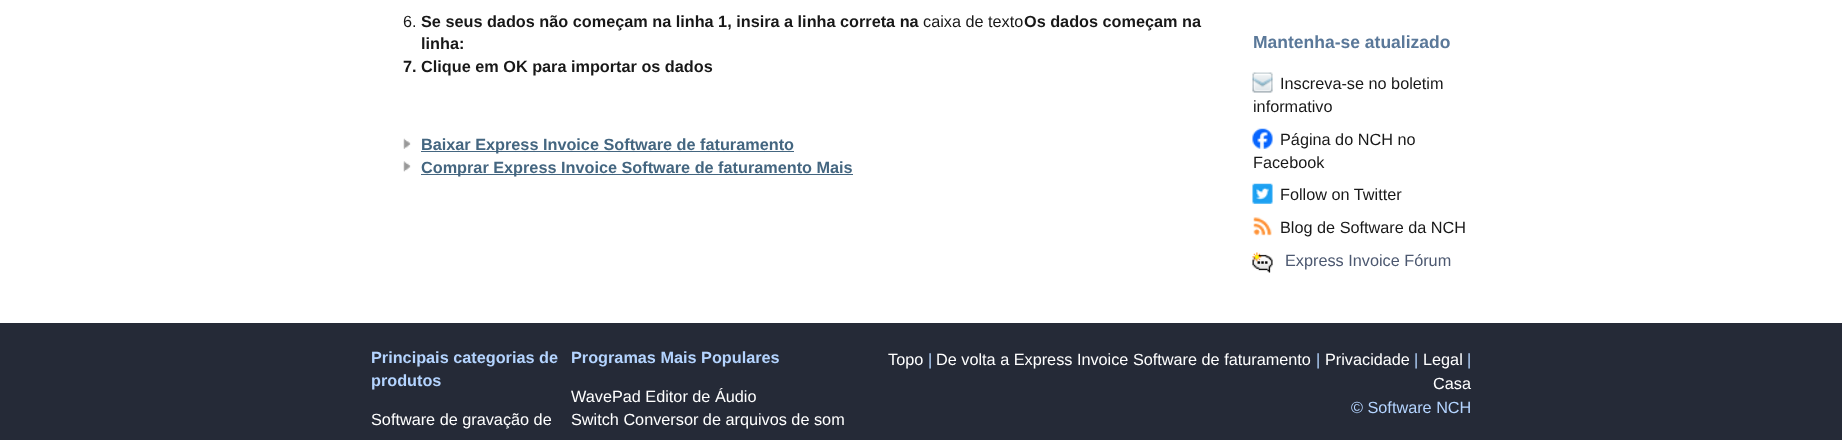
async function draw(canvas) {
  canvas.width = 1842;
  canvas.height = 440;
  const ctx = canvas.getContext('2d');
  ctx.miterLimit = 4;
  ctx.fontKerning = 'normal';
  function label(s, x, y, font, color) {
    ctx.font = font;
    ctx.fillStyle = color;
    ctx.fillText(s, x, y);
  }
  function rect(x, y, w, h, color) {
    ctx.fillStyle = color;
    ctx.fillRect(x, y, w, h);
  }
  async function image(src, x, y, w, h) {
    const img = new Image();
    img.src = src;
    await img.decode();
    ctx.drawImage(img, x, y, w, h);
  }

  rect(0, 0, 1842, 440, '#fff');
  label('6.', 403, 27, '16.25px Liberation Sans', '#181818');
  label('Se seus dados não começam na linha 1, insira a linha correta na', 421, 27, 'bold 16.25px Liberation Sans', '#181818');
  label('caixa de texto', 923, 27, '16.25px Liberation Sans', '#181818');
  label('Os dados começam na', 1024, 27, 'bold 16.25px Liberation Sans', '#181818');
  label('linha:', 421, 49, 'bold 16.25px Liberation Sans', '#181818');
  label('7. Clique em OK para importar os dados', 403, 72, 'bold 16.25px Liberation Sans', '#181818');
  await image('assets/img1.png', 403, 138, 8, 11);
  rect(421, 151, 373, 1, '#446680');
  label('Baixar Express Invoice Software de faturamento', 421, 150, 'bold 16.25px Liberation Sans', '#446680');
  await image('assets/img2.png', 403, 161, 8, 11);
  rect(421, 174, 432, 1, '#446680');
  label('Comprar Express Invoice Software de faturamento Mais', 421, 173, 'bold 16.25px Liberation Sans', '#446680');
  label('Mantenha-se atualizado', 1253, 48, 'bold 17.5px Liberation Sans', '#5a7899');
  await image('assets/img3.png', 1252, 72, 21, 21);
  label('Inscreva-se no boletim', 1280, 89, '16.25px Liberation Sans', '#181818');
  label('informativo', 1253, 112, '16.25px Liberation Sans', '#181818');
  await image('assets/img4.png', 1252, 128, 21, 21);
  label('Página do NCH no', 1280, 145, '16.25px Liberation Sans', '#181818');
  label('Facebook', 1253, 168, '16.25px Liberation Sans', '#181818');
  await image('assets/img5.png', 1252, 183, 21, 21);
  label('Follow on Twitter', 1280, 200, '16.25px Liberation Sans', '#181818');
  await image('assets/img6.png', 1253, 217, 19, 19);
  label('Blog de Software da NCH', 1280, 233, '16.25px Liberation Sans', '#181818');
  await image('assets/img7.png', 1252, 252, 21, 21);
  label('Express Invoice Fórum', 1285, 266, '16.25px Liberation Sans', '#4c5870');
  rect(0, 323, 1842, 117, '#252a37');
  label('Principais categorias de', 371, 363, 'bold 16.25px Liberation Sans', '#b4d4ff');
  label('produtos', 371, 386, 'bold 16.25px Liberation Sans', '#b4d4ff');
  label('Software de gravação de', 371, 425, '16.25px Liberation Sans', '#fff');
  label('Programas Mais Populares', 571, 363, 'bold 16.25px Liberation Sans', '#b4d4ff');
  label('WavePad Editor de Áudio', 571, 402, '16.25px Liberation Sans', '#fff');
  label('Switch Conversor de arquivos de som', 571, 425, '16.25px Liberation Sans', '#fff');
  label('Topo', 888, 365, '16.25px Liberation Sans', '#fff');
  label('|', 928, 365, '16.25px Liberation Sans', '#b4d4ff');
  label('De volta a Express Invoice Software de faturamento', 936, 365, '16.25px Liberation Sans', '#fff');
  label('|', 1316, 365, '16.25px Liberation Sans', '#b4d4ff');
  label('Privacidade', 1325, 365, '16.25px Liberation Sans', '#fff');
  label('|', 1414, 365, '16.25px Liberation Sans', '#b4d4ff');
  label('Legal', 1423, 365, '16.25px Liberation Sans', '#fff');
  label('|', 1467, 365, '16.25px Liberation Sans', '#b4d4ff');
  label('Casa', 1433, 389, '16.25px Liberation Sans', '#fff');
  label('© Software NCH', 1351, 413, '16.25px Liberation Sans', '#b4d4ff');
}

draw(document.querySelector('canvas'));
